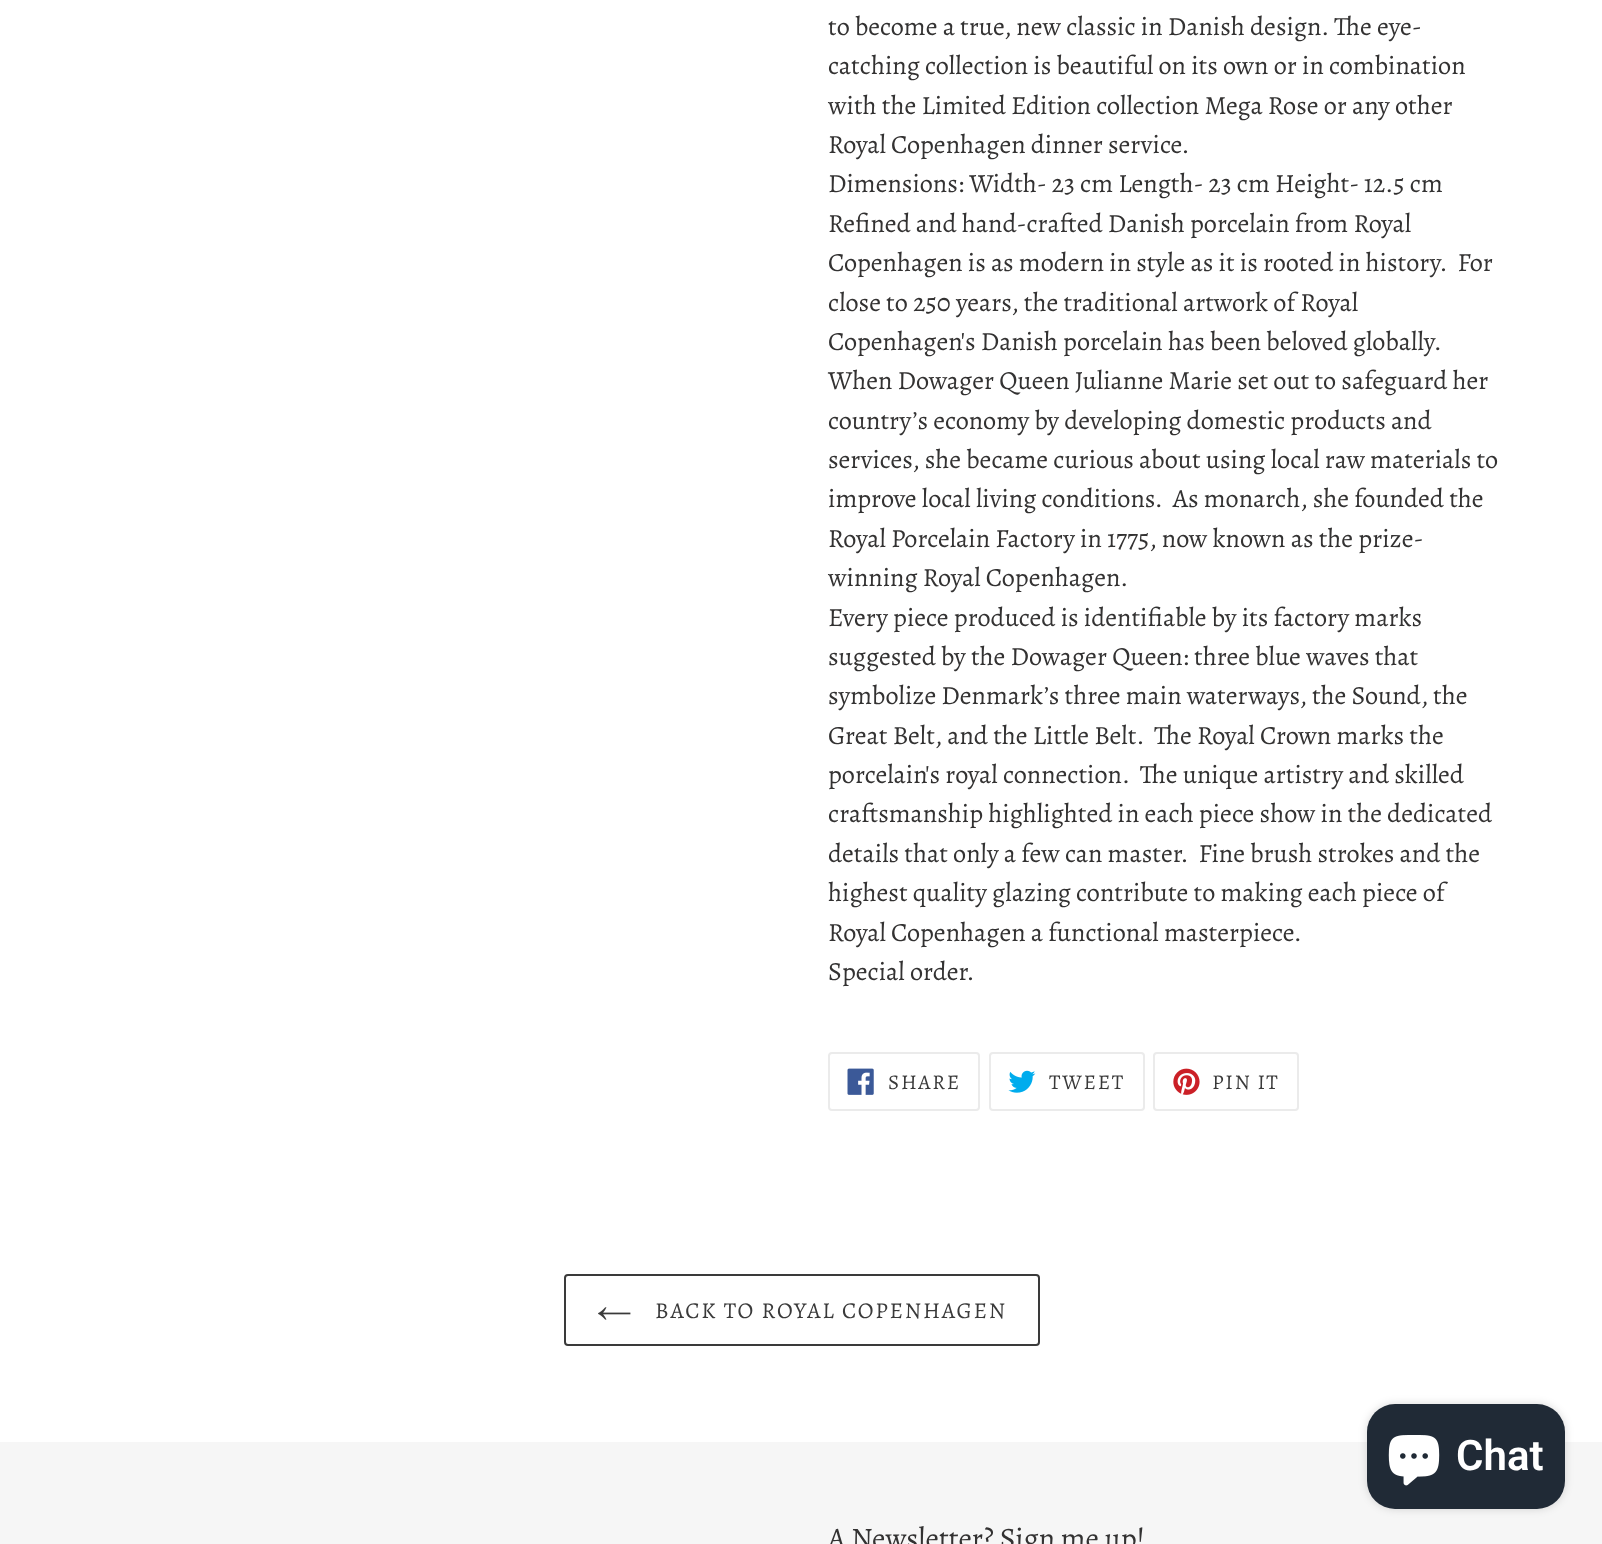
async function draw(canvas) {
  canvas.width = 1602;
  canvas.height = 1544;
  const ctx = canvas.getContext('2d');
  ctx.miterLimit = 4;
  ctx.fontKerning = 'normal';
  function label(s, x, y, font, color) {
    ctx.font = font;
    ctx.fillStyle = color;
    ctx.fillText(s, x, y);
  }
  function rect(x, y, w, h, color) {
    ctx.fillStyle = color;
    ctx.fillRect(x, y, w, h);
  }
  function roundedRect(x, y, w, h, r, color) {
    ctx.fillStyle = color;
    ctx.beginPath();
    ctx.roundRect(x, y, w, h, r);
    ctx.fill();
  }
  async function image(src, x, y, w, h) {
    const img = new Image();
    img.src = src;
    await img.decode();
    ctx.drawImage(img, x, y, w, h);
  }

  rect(0, 0, 1602, 1544, '#fff');
  label('to become a true, new classic in Danish design. The eye-', 828, 35, '26.25px Alegreya', '#333232');
  label('catching collection is beautiful on its own or in combination', 828, 74, '26.25px Alegreya', '#333232');
  label('with the Limited Edition collection Mega Rose or any other', 828, 114, '26.25px Alegreya', '#333232');
  label('Royal Copenhagen dinner service.', 828, 153, '26.25px Alegreya', '#333232');
  label('Dimensions: Width- 23 cm Length- 23 cm Height- 12.5 cm', 828, 192, '26.25px Alegreya', '#333232');
  label('Refined and hand-crafted Danish porcelain from Royal', 828, 232, '26.25px Alegreya', '#333232');
  label('Copenhagen is as modern in style as it is rooted in history.  For', 828, 271, '26.25px Alegreya', '#333232');
  label('close to 250 years, the traditional artwork of Royal', 828, 311, '26.25px Alegreya', '#333232');
  label('Copenhagen\'s Danish porcelain has been beloved globally.', 828, 350, '26.25px Alegreya', '#333232');
  label('When Dowager Queen Julianne Marie set out to safeguard her', 828, 389, '26.25px Alegreya', '#333232');
  label('country’s economy by developing domestic products and', 828, 429, '26.25px Alegreya', '#333232');
  label('services, she became curious about using local raw materials to', 828, 468, '26.25px Alegreya', '#333232');
  label('improve local living conditions.  As monarch, she founded the', 828, 507, '26.25px Alegreya', '#333232');
  label('Royal Porcelain Factory in 1775, now known as the prize-', 828, 547, '26.25px Alegreya', '#333232');
  label('winning Royal Copenhagen.', 828, 586, '26.25px Alegreya', '#333232');
  label('Every piece produced is identifiable by its factory marks', 828, 626, '26.25px Alegreya', '#333232');
  label('suggested by the Dowager Queen: three blue waves that', 828, 665, '26.25px Alegreya', '#333232');
  label('symbolize Denmark’s three main waterways, the Sound, the', 828, 704, '26.25px Alegreya', '#333232');
  label('Great Belt, and the Little Belt.', 828, 744, '26.25px Alegreya', '#333232');
  label('The Royal Crown marks the', 1154, 744, '26.25px Alegreya', '#333232');
  label('porcelain', 828, 783, '26.25px Alegreya', '#333232');
  label('\'s royal connection.  The unique artistry and skilled', 925, 783, '26.25px Alegreya', '#333232');
  label('craftsmanship highlighted in each piece show in the dedicated', 828, 822, '26.25px Alegreya', '#333232');
  label('details that only a few can master.  Fine brush strokes and the', 828, 862, '26.25px Alegreya', '#333232');
  label('highest quality glazing contribute to making each piece of', 828, 901, '26.25px Alegreya', '#333232');
  label('Royal Copenhagen a functional masterpiece.', 828, 941, '26.25px Alegreya', '#333232');
  label('Special order.', 828, 980, '26.25px Alegreya', '#333232');
  ctx.beginPath();
  ctx.roundRect(829, 1053, 150, 57, 3);
  ctx.strokeStyle = '#ebebeb';
  ctx.lineWidth = 2;
  ctx.stroke();
  await image('assets/img1.png', 847, 1068, 27, 27);
  ctx.letterSpacing = '1.75px';
  label('SHARE', 888, 1089, '21px Alegreya', '#3a3a3a');
  ctx.beginPath();
  ctx.roundRect(990, 1053, 154, 57, 3);
  ctx.stroke();
  await image('assets/img2.png', 1008, 1070, 28, 23);
  label('TWEET', 1049, 1089, '21px Alegreya', '#3a3a3a');
  ctx.beginPath();
  ctx.roundRect(1154, 1053, 144, 57, 3);
  ctx.stroke();
  await image('assets/img3.png', 1173, 1068, 27, 27);
  label('PIN IT', 1212, 1089, '21px Alegreya', '#3a3a3a');
  ctx.beginPath();
  ctx.roundRect(565, 1275, 474, 70, 3);
  ctx.strokeStyle = '#3a3a3a';
  ctx.stroke();
  await image('assets/img4.png', 598, 1307, 33, 13);
  ctx.letterSpacing = '1.8px';
  label('BACK TO ROYAL COPENHAGEN', 655, 1318, '22.75px Alegreya', '#3a3a3a');
  rect(0, 1442, 1602, 102, '#f6f6f6');
  ctx.letterSpacing = '0px';
  label('A Newsletter? Sign me up!', 828, 1548, '29.75px Alegreya', '#333232');
  ctx.fillStyle = '#00000026';
  ctx.filter = 'blur(4.5px)';
  ctx.beginPath();
  ctx.roundRect(1367, 1404, 198, 105, 28);
  ctx.fill();
  ctx.filter = 'none';
  roundedRect(1367, 1404, 198, 105, 28, '#202a36');
  await image('assets/img5.png', 1388, 1435, 52, 51);
  label('Chat', 1456, 1470, '600 42px Roboto', '#fff');
}

draw(document.querySelector('canvas'));
